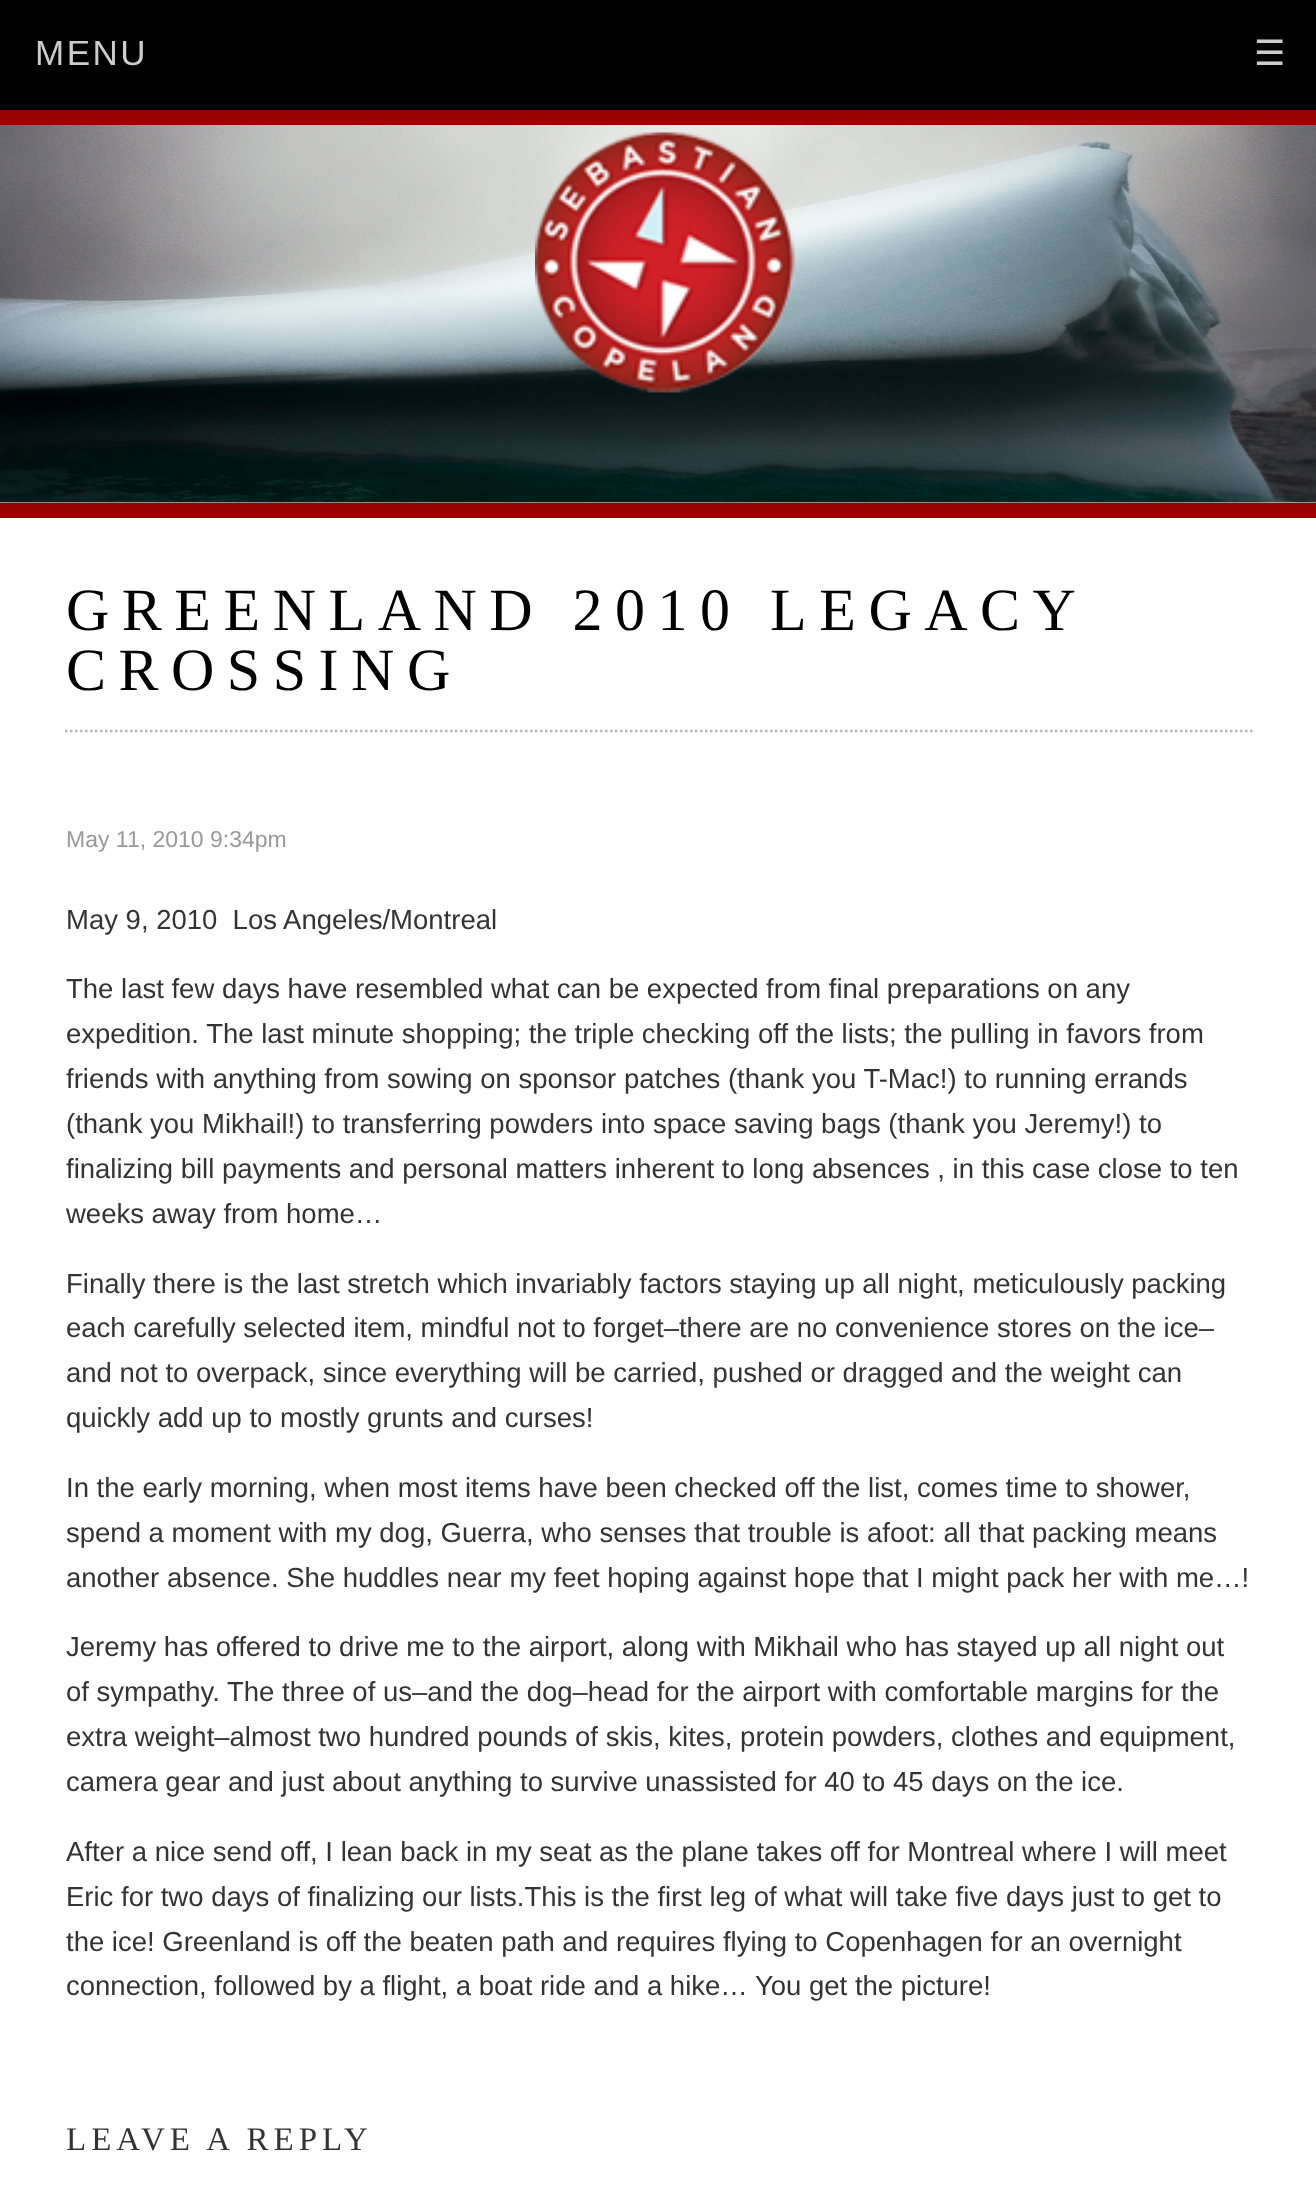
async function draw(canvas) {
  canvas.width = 1316;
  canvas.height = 2197;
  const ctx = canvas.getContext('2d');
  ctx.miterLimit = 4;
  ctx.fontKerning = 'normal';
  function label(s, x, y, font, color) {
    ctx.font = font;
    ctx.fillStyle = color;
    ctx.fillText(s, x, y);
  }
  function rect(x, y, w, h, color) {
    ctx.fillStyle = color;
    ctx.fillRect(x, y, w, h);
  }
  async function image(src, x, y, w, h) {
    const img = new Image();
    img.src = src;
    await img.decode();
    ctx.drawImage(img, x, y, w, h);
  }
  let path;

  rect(0, 0, 1316, 2197, '#fff');
  rect(0, 0, 1316, 110, '#000');
  rect(0, 110, 1316, 15, '#900');
  ctx.letterSpacing = '2.5px';
  label('MENU', 35, 65, '35px Liberation Sans', '#ccc');
  label('☰', 1254, 65, '35px DejaVu Sans', '#ccc');
  rect(0, 503, 1316, 15, '#900');
  await image('assets/img1.png', 0, 125, 1316, 378);
  await image('assets/img2.png', 535, 132, 260, 261);
  path = new Path2D('M65 731H1252.5');
  ctx.strokeStyle = '#b8b8b8';
  ctx.lineWidth = 2.5;
  ctx.setLineDash([2.5, 2.5]);
  ctx.stroke(path);
  ctx.letterSpacing = '12.5px';
  label('GREENLAND 2010 LEGACY', 66, 630, '60px Liberation Serif', '#000');
  label('CROSSING', 66, 690, '60px Liberation Serif', '#000');
  ctx.letterSpacing = '0px';
  label('May 11, 2010 9:34pm', 66, 847, '23px Liberation Sans', '#999');
  label('May 9, 2010  Los Angeles/Montreal', 66, 929, '27.5px Liberation Sans', '#333');
  label('The last few days have resembled what can be expected from final preparations on any', 66, 998, '27.5px Liberation Sans', '#333');
  label('expedition. The last minute shopping; the triple checking off the lists; the pulling in favors from', 66, 1043, '27.5px Liberation Sans', '#333');
  label('friends with anything from sowing on sponsor patches (thank you T-Mac!) to running errands', 66, 1088, '27.5px Liberation Sans', '#333');
  label('(thank you Mikhail!) to transferring powders into space saving bags (thank you Jeremy!) to', 66, 1133, '27.5px Liberation Sans', '#333');
  label('finalizing bill payments and personal matters inherent to long absences , in this case close to ten', 66, 1178, '27.5px Liberation Sans', '#333');
  label('weeks away from home…', 66, 1223, '27.5px Liberation Sans', '#333');
  label('Finally there is the last stretch which invariably factors staying up all night, meticulously packing', 66, 1293, '27.5px Liberation Sans', '#333');
  label('each carefully selected item, mindful not to forget–there are no convenience stores on the ice–', 66, 1337, '27.5px Liberation Sans', '#333');
  label('and not to overpack, since everything will be carried, pushed or dragged and the weight can', 66, 1382, '27.5px Liberation Sans', '#333');
  label('quickly add up to mostly grunts and curses!', 66, 1427, '27.5px Liberation Sans', '#333');
  label('In the early morning, when most items have been checked off the list, comes time to shower,', 66, 1497, '27.5px Liberation Sans', '#333');
  label('spend a moment with my dog, Guerra, who senses that trouble is afoot: all that packing means', 66, 1542, '27.5px Liberation Sans', '#333');
  label('another absence. She huddles near my feet hoping against hope that I might pack her with me…!', 66, 1587, '27.5px Liberation Sans', '#333');
  label('Jeremy has offered to drive me to the airport, along with Mikhail who has stayed up all night out', 66, 1656, '27.5px Liberation Sans', '#333');
  label('of sympathy. The three of us–and the dog–head for the airport with comfortable margins for the', 66, 1701, '27.5px Liberation Sans', '#333');
  label('extra weight–almost two hundred pounds of skis, kites, protein powders, clothes and equipment,', 66, 1746, '27.5px Liberation Sans', '#333');
  label('camera gear and just about anything to survive unassisted for 40 to 45 days on the ice.', 66, 1791, '27.5px Liberation Sans', '#333');
  label('After a nice send off, I lean back in my seat as the plane takes off for Montreal where I will meet', 66, 1861, '27.5px Liberation Sans', '#333');
  label('Eric for two days of finalizing our lists.This is the first leg of what will take five days just to get to', 66, 1906, '27.5px Liberation Sans', '#333');
  label('the ice! Greenland is off the beaten path and requires flying to Copenhagen for an overnight', 66, 1951, '27.5px Liberation Sans', '#333');
  label('connection, followed by a flight, a boat ride and a hike… You get the picture!', 66, 1995, '27.5px Liberation Sans', '#333');
  ctx.letterSpacing = '5px';
  label('LEAVE A REPLY', 66, 2150, '33px Liberation Serif', '#333');
}

draw(document.querySelector('canvas'));
